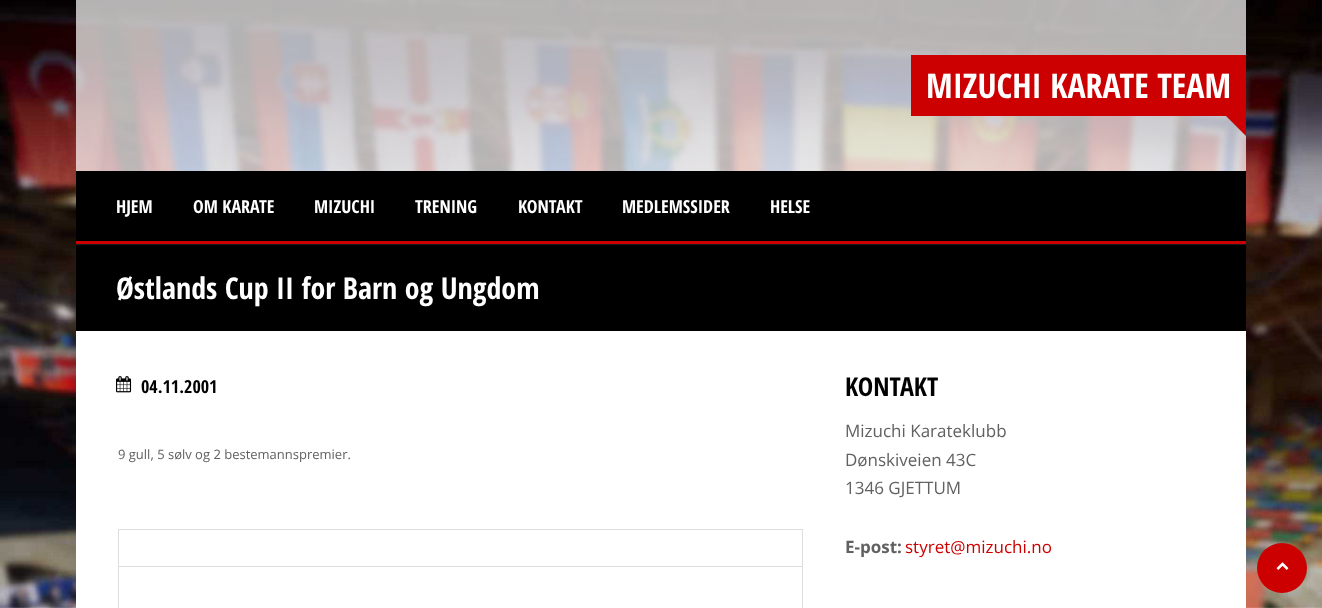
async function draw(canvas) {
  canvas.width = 1322;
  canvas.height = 608;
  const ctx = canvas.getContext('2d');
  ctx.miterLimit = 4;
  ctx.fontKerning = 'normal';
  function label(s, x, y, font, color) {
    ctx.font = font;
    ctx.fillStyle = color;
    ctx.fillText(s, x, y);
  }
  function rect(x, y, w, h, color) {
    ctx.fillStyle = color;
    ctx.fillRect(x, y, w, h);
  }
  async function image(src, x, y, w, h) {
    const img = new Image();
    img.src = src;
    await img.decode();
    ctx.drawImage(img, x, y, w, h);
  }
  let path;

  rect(0, 0, 1322, 608, '#fff');
  await image('assets/img1.png', 0, 0, 1322, 608);
  rect(76, 0, 1170, 171, '#ffffffb3');
  rect(911, 55, 335, 61, '#c00');
  label('MIZUCHI KARATE TEAM', 926, 98, 'bold 34px Open Sans Condensed', '#fff');
  ctx.fillStyle = '#c00';
  path = new Path2D('M1226 116H1246V136Z');
  ctx.fill(path);
  rect(76, 171, 1170, 70, '#000');
  rect(76, 241, 1170, 3, '#c00');
  label('HJEM', 116, 213, 'bold 18px Open Sans Condensed', '#fff');
  label('OM KARATE', 193, 213, 'bold 18px Open Sans Condensed', '#fff');
  label('MIZUCHI', 314, 213, 'bold 18px Open Sans Condensed', '#fff');
  label('TRENING', 415, 213, 'bold 18px Open Sans Condensed', '#fff');
  label('KONTAKT', 518, 213, 'bold 18px Open Sans Condensed', '#fff');
  label('MEDLEMSSIDER', 622, 213, 'bold 18px Open Sans Condensed', '#fff');
  label('HELSE', 770, 213, 'bold 18px Open Sans Condensed', '#fff');
  rect(76, 245, 1170, 86, '#000');
  rect(76, 244, 1170, 1, '#1a1a1a');
  label('Østlands Cup II for Barn og Ungdom', 116, 299, 'bold 30px Open Sans Condensed', '#fff');
  rect(76, 331, 1170, 277, '#fff');
  await image('assets/img2.png', 116, 376, 16, 17);
  label('04.11.2001', 141, 393, 'bold 18px Open Sans Condensed', '#000');
  label('9 gull, 5 sølv og 2 bestemannspremier.', 118, 459, '13px Open Sans', '#616161');
  rect(118, 529, 685, 1, '#ddd');
  rect(802, 529, 1, 79, '#ddd');
  rect(118, 529, 1, 79, '#ddd');
  rect(118, 566, 685, 1, '#ddd');
  label('KONTAKT', 845, 396, 'bold 26px Open Sans Condensed', '#000');
  label('Mizuchi Karateklubb', 845, 437, '17px Open Sans', '#616161');
  label('Dønskiveien 43C', 845, 466, '17px Open Sans', '#616161');
  label('1346 GJETTUM', 845, 494, '17px Open Sans', '#616161');
  label('E-post:', 845, 553, 'bold 17px Open Sans', '#616161');
  label('styret@mizuchi.no', 905, 553, '17px Open Sans', '#c00');
  ctx.beginPath();
  ctx.arc(1282, 568, 25, 0, 2 * Math.PI);
  ctx.fill();
  await image('assets/img3.png', 1276, 562, 13, 8);
}

draw(document.querySelector('canvas'));
